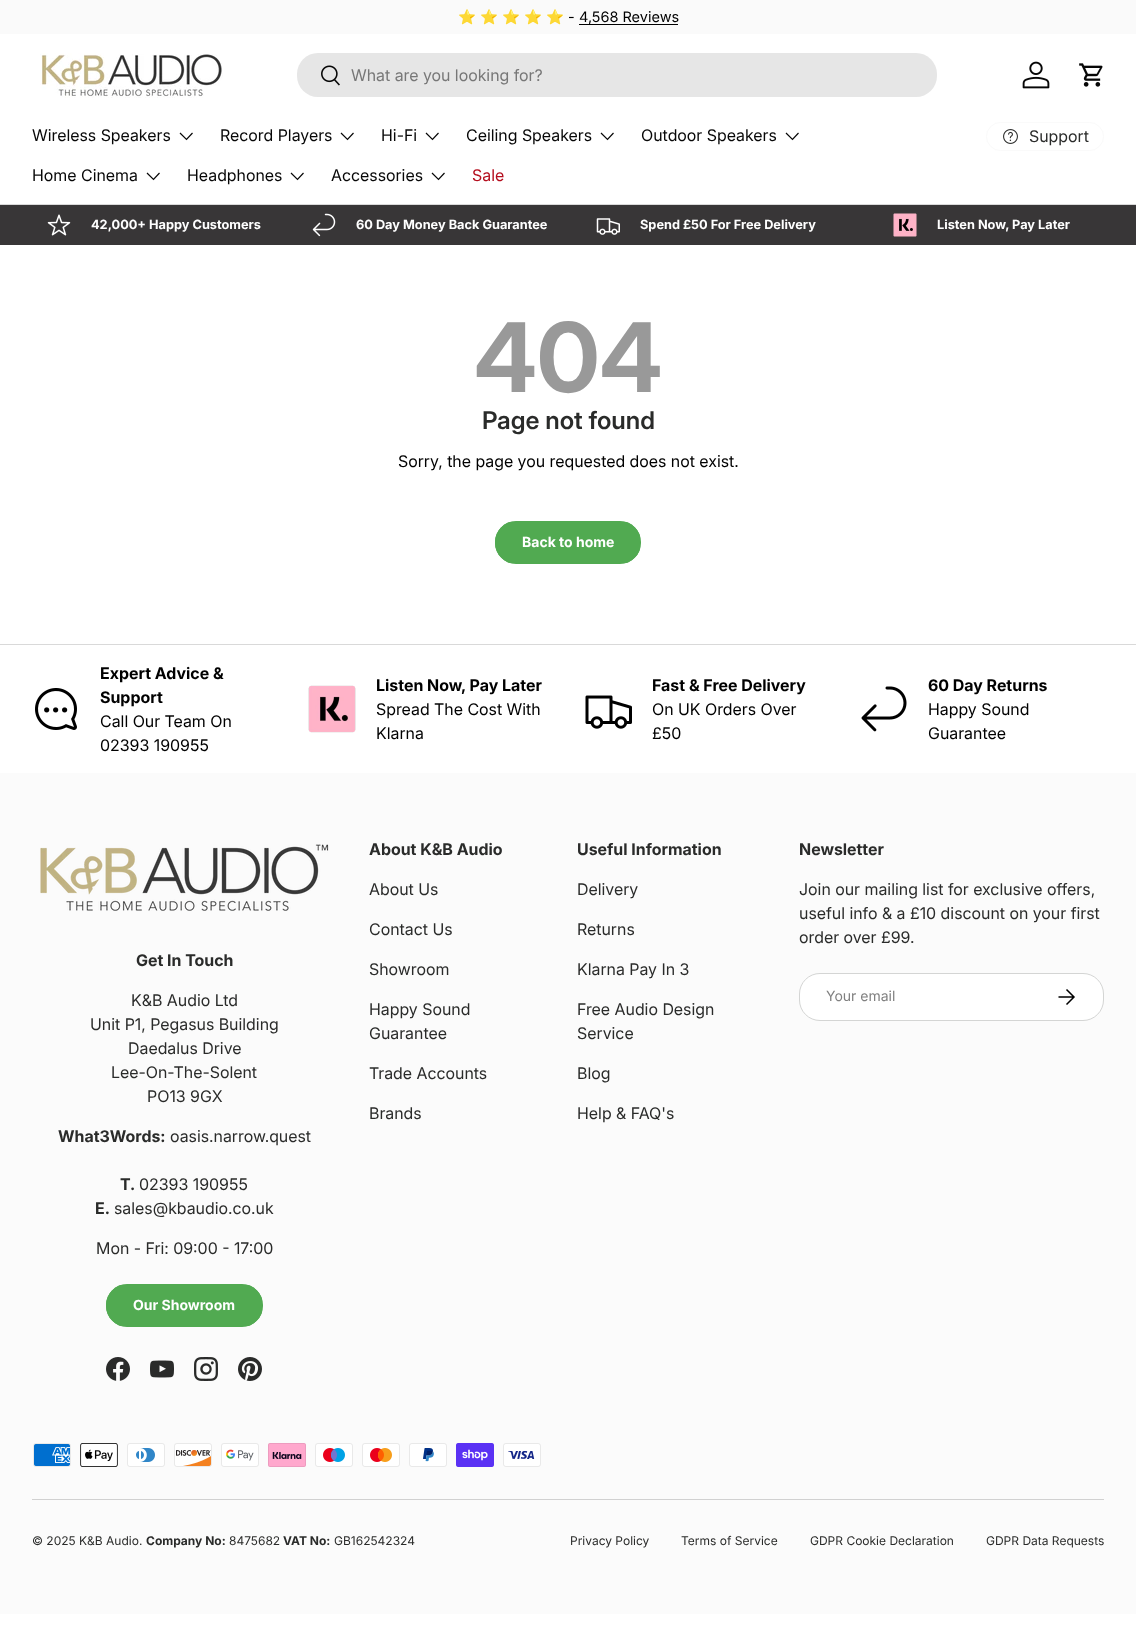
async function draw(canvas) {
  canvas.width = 1136;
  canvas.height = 1644;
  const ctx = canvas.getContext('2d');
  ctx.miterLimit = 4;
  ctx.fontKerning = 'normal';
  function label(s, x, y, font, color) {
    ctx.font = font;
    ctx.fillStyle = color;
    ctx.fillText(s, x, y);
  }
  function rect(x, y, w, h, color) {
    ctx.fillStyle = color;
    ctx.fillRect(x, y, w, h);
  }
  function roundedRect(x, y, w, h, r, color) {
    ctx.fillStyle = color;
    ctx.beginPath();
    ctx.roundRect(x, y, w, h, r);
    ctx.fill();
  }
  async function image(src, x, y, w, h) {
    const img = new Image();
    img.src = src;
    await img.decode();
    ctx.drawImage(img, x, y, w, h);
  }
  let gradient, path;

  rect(0, 0, 1136, 1644, '#fff');
  rect(0, 0, 1136, 34, '#fafafa');
  label('⭐️', 458, 22, '14.5px Noto Color Emoji', '#000');
  label('⭐', 480, 22, '14.5px Noto Color Emoji', '#000');
  label('⭐️', 502, 22, '14.5px Noto Color Emoji', '#000');
  label('⭐', 524, 22, '14.5px Noto Color Emoji', '#000');
  label('⭐', 546, 22, '14.5px Noto Color Emoji', '#000');
  label('-', 568, 22, '14.5px "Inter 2"', '#000');
  rect(579, 24, 99, 1, '#000');
  label('4,568 Reviews', 579, 22, '14.5px "Inter 2"', '#000');
  rect(0, 204, 1136, 1, '#dadada');
  await image('assets/img1.png', 40, 53, 183, 45);
  roundedRect(297, 53, 640, 44, 21, '#e6e6e6');
  await image('assets/img2.png', 321, 65, 19, 21);
  label('What are you looking for?', 351, 81, '16px Inter', '#777');
  await image('assets/img3.png', 1022, 61, 28, 28);
  await image('assets/img4.png', 1079, 63, 24, 24);
  label('Wireless Speakers', 32, 141, '16px Inter', '#070707');
  path = new Path2D('M192.5 133L186.5 139.5L180 133');
  ctx.strokeStyle = '#070707';
  ctx.lineWidth = 1.2;
  ctx.stroke(path);
  label('Record Players', 220, 141, '16px Inter', '#070707');
  path = new Path2D('M353.5 133L347.5 139.5L341 133');
  ctx.stroke(path);
  label('Hi-Fi', 381, 141, '16px Inter', '#070707');
  path = new Path2D('M438.5 133L432.5 139.5L426 133');
  ctx.stroke(path);
  label('Ceiling Speakers', 466, 141, '16px Inter', '#070707');
  path = new Path2D('M613.5 133L607.5 139.5L601 133');
  ctx.stroke(path);
  label('Outdoor Speakers', 641, 141, '16px Inter', '#070707');
  path = new Path2D('M798.5 133L792.5 139.5L786 133');
  ctx.stroke(path);
  label('Home Cinema', 32, 181, '16px Inter', '#070707');
  path = new Path2D('M159.5 173L153.5 179.5L147 173');
  ctx.stroke(path);
  label('Headphones', 187, 181, '16px Inter', '#070707');
  path = new Path2D('M303.5 173L297.5 179.5L291 173');
  ctx.stroke(path);
  label('Accessories', 331, 181, '16px Inter', '#070707');
  path = new Path2D('M444.5 173L438.5 179.5L432 173');
  ctx.stroke(path);
  label('Sale', 472, 181, '16px Inter', '#b40c1c');
  ctx.beginPath();
  ctx.roundRect(986.5, 122.5, 117, 28, 14);
  ctx.strokeStyle = '#fafafa';
  ctx.lineWidth = 1;
  ctx.stroke();
  await image('assets/img5.png', 1003, 129, 15, 15);
  label('Support', 1029, 142, '16px Inter', '#2a2b2a');
  rect(0, 205, 1136, 40, '#383637');
  await image('assets/img6.png', 47, 214, 24, 22);
  label('42,000+ Happy Customers', 91, 229, 'bold 12.75px "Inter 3"', '#fff');
  await image('assets/img7.png', 312, 213, 24, 24);
  label('60 Day Money Back Guarantee', 356, 229, 'bold 12.75px "Inter 3"', '#fff');
  await image('assets/img8.png', 596, 218, 24, 17);
  label('Spend £50 For Free Delivery', 640, 229, 'bold 12.75px "Inter 3"', '#fff');
  await image('assets/img9.png', 893, 213, 24, 24);
  label('Listen Now, Pay Later', 937, 229, 'bold 12.75px "Inter 3"', '#fff');
  label('404', 474, 392, 'bold 96px Inter', '#999');
  label('Page not found', 482, 429, '600 24.5px Inter', '#2a2b2a');
  label('Sorry, the page you requested does not exist.', 398, 467, '16px Inter', '#000');
  ctx.save();
  ctx.beginPath();
  ctx.roundRect(495, 521, 146, 43, 21);
  ctx.clip();
  gradient = ctx.createLinearGradient(216, 491, 632, 594);
  gradient.addColorStop(0.6, '#75bc75');
  gradient.addColorStop(0.6, '#51aa51');
  gradient.addColorStop(1, '#51aa51');
  ctx.fillStyle = gradient;
  ctx.fillRect(495, 522, 145, 41);
  ctx.restore();
  ctx.beginPath();
  ctx.roundRect(495.5, 521.5, 145, 42, 20.5);
  ctx.strokeStyle = '#51aa51';
  ctx.stroke();
  label('Back to home', 522, 547, 'bold 14px "Inter 3"', '#fff');
  rect(0, 644, 1136, 1, '#d9d9d9');
  await image('assets/img10.png', 35, 688, 42, 42);
  label('Expert Advice &', 100, 679, 'bold 16px "Inter 2"', '#000');
  label('Support', 100, 703, 'bold 16px "Inter 2"', '#000');
  label('Call Our Team On', 100, 727, '16px Inter', '#000');
  label('02393 190955', 100, 751, '16px Inter', '#000');
  await image('assets/img11.png', 308, 685, 48, 48);
  label('Listen Now, Pay Later', 376, 691, 'bold 16px "Inter 2"', '#000');
  label('Spread The Cost With', 376, 715, '16px Inter', '#000');
  label('Klarna', 376, 739, '16px Inter', '#000');
  await image('assets/img12.png', 585, 695, 47, 34);
  label('Fast & Free Delivery', 652, 691, 'bold 16px "Inter 2"', '#000');
  label('On UK Orders Over', 652, 715, '16px Inter', '#000');
  label('£50', 652, 739, '16px Inter', '#000');
  await image('assets/img13.png', 861, 686, 46, 46);
  label('60 Day Returns', 928, 691, 'bold 16px "Inter 2"', '#000');
  label('Happy Sound', 928, 715, '16px Inter', '#000');
  label('Guarantee', 928, 739, '16px Inter', '#000');
  rect(0, 773, 1136, 841, '#fbfbfb');
  label('About K&B Audio', 369, 855, 'bold 16px "Inter 2"', '#2a2b2a');
  label('About Us', 369, 895, '16px Inter', '#2a2b2a');
  label('Contact Us', 369, 935, '16px Inter', '#2a2b2a');
  label('Showroom', 369, 975, '16px Inter', '#2a2b2a');
  label('Happy Sound', 369, 1015, '16px Inter', '#2a2b2a');
  label('Guarantee', 369, 1039, '16px Inter', '#2a2b2a');
  label('Trade Accounts', 369, 1079, '16px Inter', '#2a2b2a');
  label('Brands', 369, 1119, '16px Inter', '#2a2b2a');
  label('Useful Information', 577, 855, 'bold 16px "Inter 2"', '#2a2b2a');
  label('Delivery', 577, 895, '16px Inter', '#2a2b2a');
  label('Returns', 577, 935, '16px Inter', '#2a2b2a');
  label('Klarna Pay In 3', 577, 975, '16px Inter', '#2a2b2a');
  label('Free Audio Design', 577, 1015, '16px Inter', '#2a2b2a');
  label('Service', 577, 1039, '16px Inter', '#2a2b2a');
  label('Blog', 577, 1079, '16px Inter', '#2a2b2a');
  label('Help & FAQ\'s', 577, 1119, '16px Inter', '#2a2b2a');
  label('Newsletter', 799, 855, 'bold 16px "Inter 2"', '#2a2b2a');
  label('Join our mailing list for exclusive offers,', 799, 895, '16px Inter', '#2a2b2a');
  label('useful info & a £10 discount on your first', 799, 919, '16px Inter', '#2a2b2a');
  label('order over £99.', 799, 943, '16px Inter', '#2a2b2a');
  ctx.fillStyle = '#fff';
  ctx.beginPath();
  ctx.roundRect(799.5, 973.5, 304, 47, 20.5);
  ctx.fill();
  ctx.strokeStyle = '#d4d5d4';
  ctx.stroke();
  label('Your email', 826, 1001, '14px "Inter 2"', '#808080');
  path = new Path2D('M1058.5 997H1073.5M1066.5 989.5L1074 997L1066.5 1004.5');
  ctx.strokeStyle = '#000';
  ctx.lineWidth = 1.5;
  ctx.stroke(path);
  await image('assets/img14.png', 40, 844, 289, 67);
  label('Get In Touch', 136, 966, 'bold 16px "Inter 2"', '#2a2b2a');
  label('K&B Audio Ltd', 131, 1006, '16px Inter', '#2a2b2a');
  label('Unit P1, Pegasus Building', 90, 1030, '16px Inter', '#2a2b2a');
  label('Daedalus Drive', 128, 1054, '16px Inter', '#2a2b2a');
  label('Lee-On-The-Solent', 111, 1078, '16px Inter', '#2a2b2a');
  label('PO13 9GX', 147, 1102, '16px Inter', '#2a2b2a');
  label('What3Words:', 58, 1142, 'bold 16px "Inter 2"', '#2a2b2a');
  label('oasis.narrow.quest', 170, 1142, '16px Inter', '#2a2b2a');
  label('T.', 120, 1190, 'bold 16px "Inter 2"', '#2a2b2a');
  label('02393 190955', 139, 1190, '16px Inter', '#2a2b2a');
  label('E.', 95, 1214, 'bold 16px "Inter 2"', '#2a2b2a');
  label('sales@kbaudio.co.uk', 114, 1214, '16px Inter', '#2a2b2a');
  label('Mon - Fri: 09:00 - 17:00', 96, 1254, '16px Inter', '#2a2b2a');
  ctx.save();
  ctx.beginPath();
  ctx.roundRect(106, 1284, 157, 43, 21);
  ctx.clip();
  gradient = ctx.createLinearGradient(-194, 1250, 253, 1361);
  gradient.addColorStop(0.6, '#75bc75');
  gradient.addColorStop(0.6, '#51aa51');
  gradient.addColorStop(1, '#51aa51');
  ctx.fillStyle = gradient;
  ctx.fillRect(106, 1285, 156, 41);
  ctx.restore();
  ctx.beginPath();
  ctx.roundRect(106.5, 1284.5, 156, 42, 20.5);
  ctx.strokeStyle = '#51aa51';
  ctx.lineWidth = 1;
  ctx.stroke();
  label('Our Showroom', 133, 1310, 'bold 14px "Inter 3"', '#fff');
  await image('assets/img15.png', 106, 1357, 24, 24);
  await image('assets/img16.png', 150, 1360, 24, 18);
  await image('assets/img17.png', 194, 1357, 24, 24);
  await image('assets/img18.png', 238, 1357, 24, 24);
  await image('assets/img19.png', 33, 1443, 38, 24);
  await image('assets/img20.png', 80, 1443, 38, 24);
  await image('assets/img21.png', 127, 1443, 38, 24);
  await image('assets/img22.png', 174, 1443, 38, 24);
  await image('assets/img23.png', 221, 1443, 38, 24);
  await image('assets/img24.png', 268, 1443, 38, 24);
  await image('assets/img25.png', 315, 1443, 38, 24);
  await image('assets/img26.png', 362, 1443, 38, 24);
  await image('assets/img27.png', 409, 1443, 38, 24);
  await image('assets/img28.png', 456, 1443, 38, 24);
  await image('assets/img29.png', 503, 1443, 38, 24);
  rect(32, 1499, 1072, 1, '#d1d1d1');
  label('© 2025 K&B Audio.', 32, 1545, '12px "Inter 2"', '#2a2b2a');
  label('Company No:', 146, 1545, 'bold 12px "Inter 3"', '#2a2b2a');
  label('8475682', 229, 1545, '12px "Inter 2"', '#2a2b2a');
  label('VAT No:', 283, 1545, 'bold 12px "Inter 3"', '#2a2b2a');
  label('GB162542324', 334, 1545, '12px "Inter 2"', '#2a2b2a');
  label('Privacy Policy', 570, 1545, '12px "Inter 2"', '#2a2b2a');
  label('Terms of Service', 681, 1545, '12px "Inter 2"', '#2a2b2a');
  label('GDPR Cookie Declaration', 810, 1545, '12px "Inter 2"', '#2a2b2a');
  label('GDPR Data Requests', 986, 1545, '12px "Inter 2"', '#2a2b2a');
}

draw(document.querySelector('canvas'));
